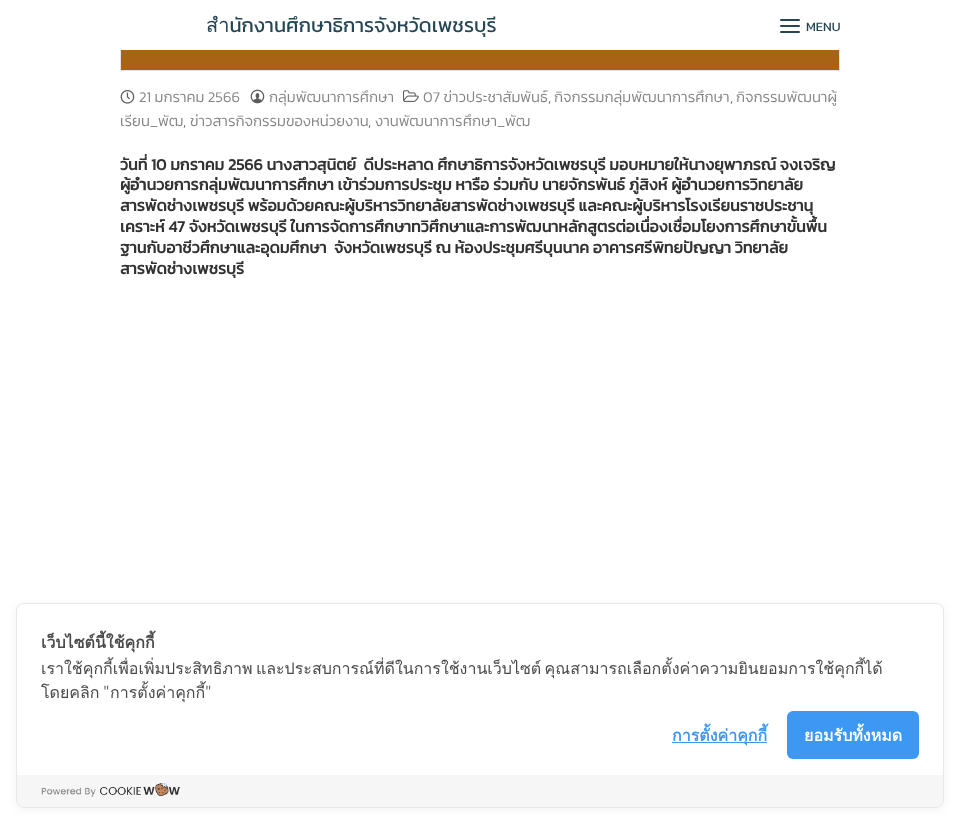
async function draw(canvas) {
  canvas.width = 960;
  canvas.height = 824;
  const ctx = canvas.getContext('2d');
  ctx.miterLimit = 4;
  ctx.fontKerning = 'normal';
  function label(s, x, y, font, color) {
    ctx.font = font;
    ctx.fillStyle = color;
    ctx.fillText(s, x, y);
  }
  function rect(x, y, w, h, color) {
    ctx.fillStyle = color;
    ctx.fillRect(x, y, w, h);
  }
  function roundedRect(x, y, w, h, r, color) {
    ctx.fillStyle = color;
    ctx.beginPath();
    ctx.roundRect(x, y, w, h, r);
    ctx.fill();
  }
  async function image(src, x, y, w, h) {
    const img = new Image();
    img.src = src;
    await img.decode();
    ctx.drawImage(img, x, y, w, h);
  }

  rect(0, 0, 960, 824, '#fff');
  label('สำนักงานศึกษาธิการจังหวัดเพชรบุรี', 206, 32, '20px Kanit', '#254655');
  roundedRect(780, 19, 20, 2, 1, '#254655');
  roundedRect(780, 25, 20, 2, 1, '#254655');
  roundedRect(780, 31, 20, 2, 1, '#254655');
  label('MENU', 806, 31, '13px Kanit', '#254655');
  rect(121, 50, 718, 20, '#a86315');
  rect(839, 50, 1, 21, '#e2e2e2');
  rect(120, 70, 720, 1, '#e2e2e2');
  rect(120, 50, 1, 21, '#e2e2e2');
  await image('assets/img1.png', 120, 90, 15, 14);
  label('21 มกราคม 2566', 139, 102, '300 14.9px Kanit', '#858585');
  await image('assets/img2.png', 250, 89, 15, 15);
  label('กลุ่มพัฒนาการศึกษา', 269, 102, '300 14.9px Kanit', '#858585');
  await image('assets/img3.png', 403, 90, 16, 12);
  label('07 ข่าวประชาสัมพันธ์', 423, 102, '300 14.9px Kanit', '#858585');
  label(',', 548, 102, '300 14.9px Kanit', '#5c5c5c');
  label('กิจกรรมกลุ่มพัฒนาการศึกษา', 554, 102, '300 14.9px Kanit', '#858585');
  label(',', 730, 102, '300 14.9px Kanit', '#5c5c5c');
  label('กิจกรรมพัฒนาผู้', 736, 102, '300 14.9px Kanit', '#858585');
  label('เรียน_พัฒ', 120, 126, '300 14.9px Kanit', '#858585');
  label(',', 183, 126, '300 14.9px Kanit', '#5c5c5c');
  label('ข่าวสารกิจกรรมของหน่วยงาน', 190, 126, '300 14.9px Kanit', '#858585');
  label(',', 368, 126, '300 14.9px Kanit', '#5c5c5c');
  label('งานพัฒนาการศึกษา_พัฒ', 375, 126, '300 14.9px Kanit', '#858585');
  label('วันที่ 10 มกราคม 2566 นางสาวสุนิตย์  ดีประหลาด ศึกษาธิการจังหวัดเพชรบุรี มอบหมายให้นางยุพาภรณ์ จงเจริญ', 120, 170, 'bold 16px Kanit', '#333');
  label('ผู้อำนวยการกลุ่มพัฒนาการศึกษา เข้าร่วมการประชุม หารือ ร่วมกับ นายจักรพันธ์ ภู่สิงห์ ผู้อำนวยการวิทยาลัย', 120, 190, 'bold 16px Kanit', '#333');
  label('สารพัดช่างเพชรบุรี พร้อมด้วยคณะผู้บริหารวิทยาลัยสารพัดช่างเพชรบุรี และคณะผู้บริหารโรงเรียนราชประชานุ', 120, 211, 'bold 16px Kanit', '#333');
  label('เคราะห์ 47 จังหวัดเพชรบุรี ในการจัดการศึกษาทวิศึกษาและการพัฒนาหลักสูตรต่อเนื่องเชื่อมโยงการศึกษาขั้นพื้น', 120, 232, 'bold 16px Kanit', '#333');
  label('ฐานกับอาชีวศึกษาและอุดมศึกษา  จังหวัดเพชรบุรี ณ ห้องประชุมศรีบุนนาค อาคารศรีพิทยปัญญา วิทยาลัย', 120, 253, 'bold 16px Kanit', '#333');
  label('สารพัดช่างเพชรบุรี', 120, 274, 'bold 16px Kanit', '#333');
  ctx.fillStyle = '#0000000d';
  ctx.filter = 'blur(4px)';
  ctx.beginPath();
  ctx.roundRect(16, 605, 928, 205, 8);
  ctx.fill();
  ctx.filter = 'none';
  ctx.fillStyle = '#fff';
  ctx.beginPath();
  ctx.roundRect(16.5, 603.5, 927, 204, 7.5);
  ctx.fill();
  ctx.strokeStyle = '#e8e8e8';
  ctx.stroke();
  label('เว็บไซต์นี้ใช้คุกกี้', 41, 648, 'bold 16px Loma', '#4a4a4a');
  ctx.wordSpacing = '-2px';
  label('เราใช้คุกกี้เพื่อเพิ่มประสิทธิภาพ และประสบการณ์ที่ดีในการใช้งานเว็บไซต์ คุณสามารถเลือกตั้งค่าความยินยอมการใช้คุกกี้ได้', 41, 674, '16px Loma', '#4a4a4a');
  ctx.wordSpacing = '0px';
  label('โดยคลิก', 41, 698, '16px Loma', '#4a4a4a');
  label('"', 103, 698, '300 16px Noto Sans JP', '#4a4a4a');
  label('การตั้งค่าคุกกี้', 110, 698, '16px Loma', '#4a4a4a');
  label('"', 205, 698, '300 16px Noto Sans JP', '#4a4a4a');
  rect(672, 742, 95, 1, '#3d98f3');
  label('การตั้งค่าคุกกี้', 672, 741, 'bold 16px Loma', '#3d98f3');
  roundedRect(787, 711, 132, 48, 6, '#3d98f3');
  label('ยอมรับทั้งหมด', 804, 741, 'bold 16px Loma', '#fff');
  ctx.fillStyle = '#f6f6f6';
  ctx.beginPath();
  ctx.roundRect(17, 775, 926, 32, [0, 0, 8, 8]);
  ctx.fill();
  await image('assets/img4.png', 41, 782, 139, 15);
}

draw(document.querySelector('canvas'));
